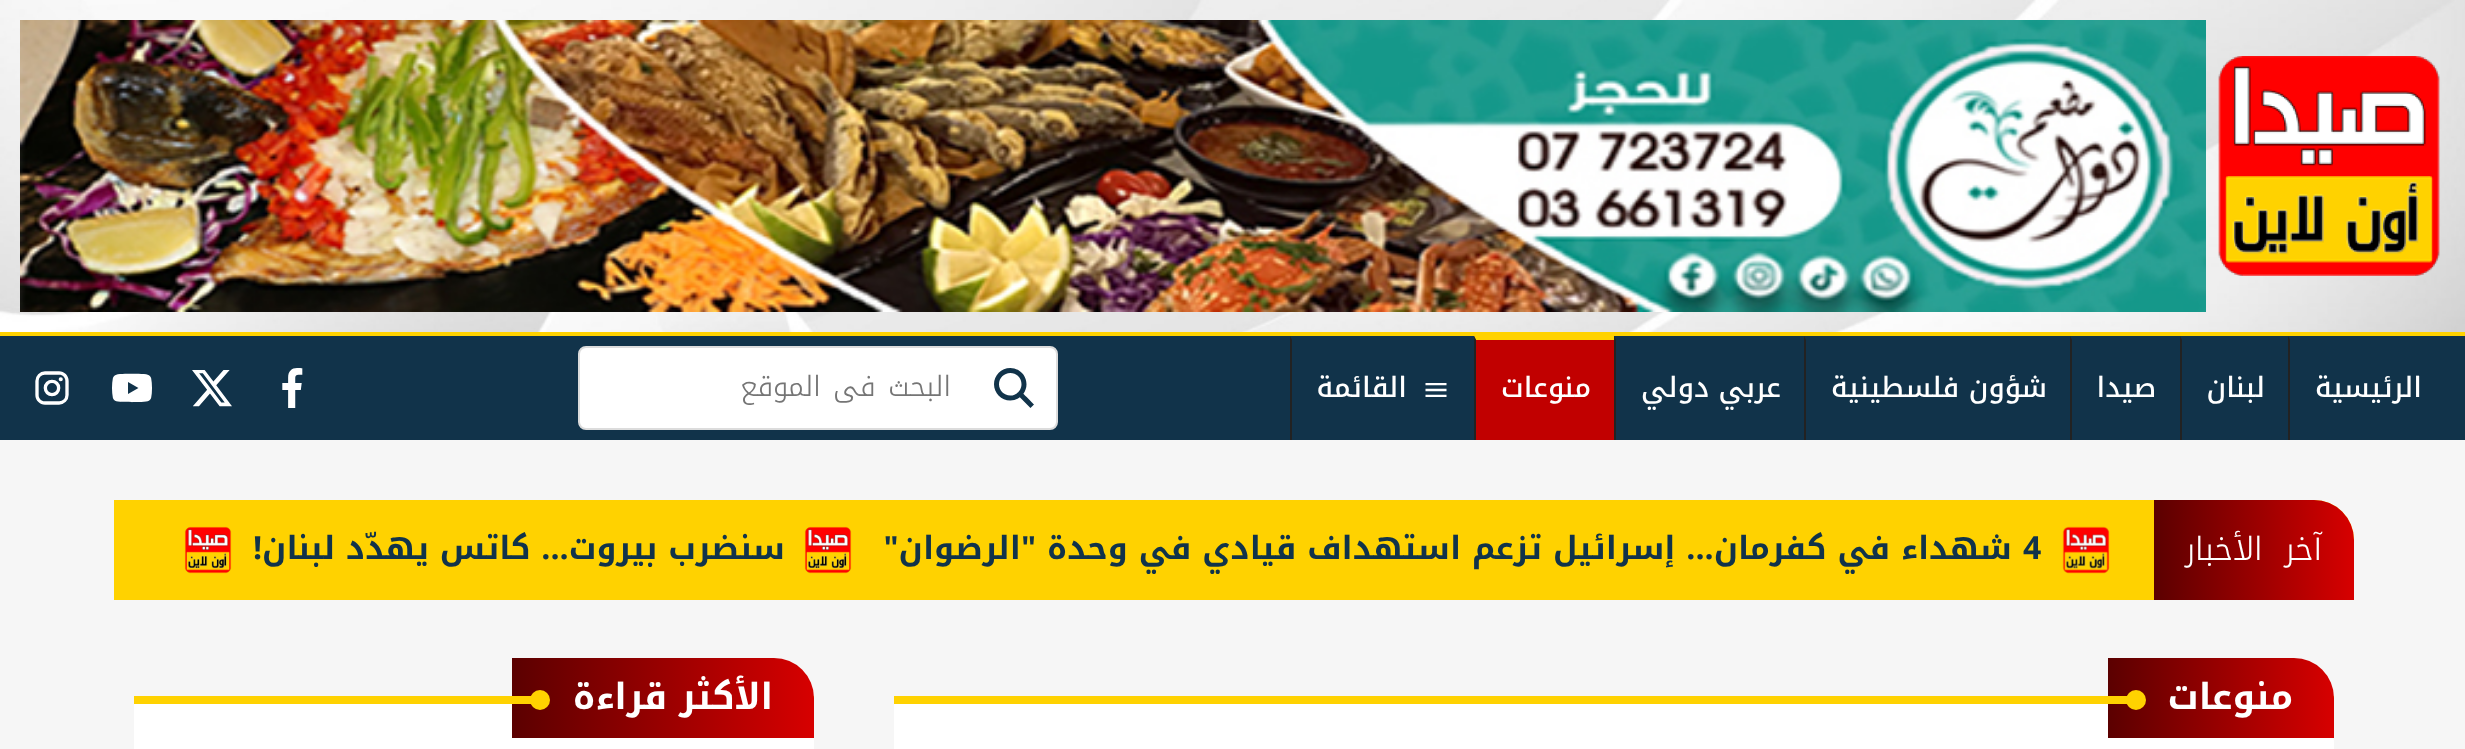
async function draw(canvas) {
  canvas.width = 2465;
  canvas.height = 749;
  const ctx = canvas.getContext('2d');
  ctx.miterLimit = 4;
  ctx.fontKerning = 'normal';
  function label(s, x, y, font, color) {
    ctx.font = font;
    ctx.fillStyle = color;
    ctx.fillText(s, x, y);
  }
  function rect(x, y, w, h, color) {
    ctx.fillStyle = color;
    ctx.fillRect(x, y, w, h);
  }
  async function image(src, x, y, w, h) {
    const img = new Image();
    img.src = src;
    await img.decode();
    ctx.drawImage(img, x, y, w, h);
  }
  let gradient, path;

  rect(0, 0, 2465, 749, '#f6f6f6');
  await image('assets/img1.png', 0, 0, 2465, 332);
  await image('assets/img2.png', 2218, 56, 222, 220);
  await image('assets/img3.png', 20, 20, 2186, 292);
  rect(0, 336, 2465, 104, '#11334a');
  rect(0, 332, 2465, 4, '#ffd200');
  ctx.fillStyle = '#222';
  path = new Path2D('M2288 440V336L2290 340V440Z');
  ctx.fill(path);
  ctx.direction = 'rtl';
  label('الرئيسية', 2422, 397, '500 28px Noto Kufi Arabic', '#fff');
  ctx.fillStyle = '#222';
  path = new Path2D('M2180 440V336L2182 340V440Z');
  ctx.fill(path);
  label('لبنان', 2265, 397, '500 28px Noto Kufi Arabic', '#fff');
  ctx.fillStyle = '#222';
  path = new Path2D('M2070 440V336L2072 340V440Z');
  ctx.fill(path);
  label('صيدا', 2156, 397, '500 28px Noto Kufi Arabic', '#fff');
  ctx.fillStyle = '#222';
  path = new Path2D('M1804 440V336L1806 340V440Z');
  ctx.fill(path);
  label('شؤون فلسطينية', 2047, 397, '500 28px Noto Kufi Arabic', '#fff');
  ctx.fillStyle = '#222';
  path = new Path2D('M1614 440V336L1616 340V440Z');
  ctx.fill(path);
  label('عربي دولي', 1781, 397, '500 28px Noto Kufi Arabic', '#fff');
  ctx.fillStyle = '#ffd200';
  path = new Path2D('M1474 336H1614V340H1476Z');
  ctx.fill(path);
  ctx.fillStyle = '#222';
  path = new Path2D('M1474 440V336L1476 340V440Z');
  ctx.fill(path);
  rect(1476, 340, 138, 100, '#c10000');
  label('منوعات', 1591, 397, '500 28px Noto Kufi Arabic', '#fff');
  ctx.fillStyle = '#222';
  path = new Path2D('M1290 440V336L1292 340V440Z');
  ctx.fill(path);
  await image('assets/img4.png', 1425, 383, 22, 14);
  label('القائمة', 1407, 397, '500 28px Noto Kufi Arabic', '#fff');
  ctx.beginPath();
  ctx.roundRect(579, 347, 478, 82, 7);
  ctx.fill();
  ctx.strokeStyle = '#dcdcdc';
  ctx.lineWidth = 2;
  ctx.stroke();
  await image('assets/img5.png', 994, 368, 40, 40);
  ctx.wordSpacing = '3px';
  label('البحث فى الموقع', 951, 396, '300 28px Noto Kufi Arabic', '#757575');
  await image('assets/img6.png', 282, 368, 21, 40);
  await image('assets/img7.png', 192, 370, 40, 37);
  await image('assets/img8.png', 112, 373, 40, 30);
  await image('assets/img9.png', 35, 371, 34, 34);
  ctx.fillStyle = '#ffd200';
  ctx.beginPath();
  ctx.roundRect(114, 500, 2240, 100, [0, 40, 0, 0]);
  ctx.fill();
  gradient = ctx.createLinearGradient(2354, 550, 2154, 550);
  gradient.addColorStop(0, '#d70000');
  gradient.addColorStop(1, '#5b0000');
  ctx.fillStyle = gradient;
  ctx.beginPath();
  ctx.roundRect(2154, 500, 200, 100, [0, 40, 0, 0]);
  ctx.fill();
  ctx.wordSpacing = '11px';
  label('آخر الأخبار', 2322, 560, '300 32px Noto Kufi Arabic', '#fff');
  await image('assets/img10.png', 2062, 526, 48, 48);
  ctx.wordSpacing = '0px';
  ctx.direction = 'ltr';
  label('4', 2023, 559, 'bold 32px Noto Kufi Arabic', '#11334a');
  ctx.direction = 'rtl';
  label('شهداء في كفرمان... إسرائيل تزعم استهداف قيادي في وحدة "الرضوان"', 2012, 559, 'bold 32px Noto Kufi Arabic', '#11334a');
  await image('assets/img11.png', 804, 526, 48, 48);
  label('سنضرب بيروت... كاتس يهدّد لبنان!', 785, 559, 'bold 32px Noto Kufi Arabic', '#11334a');
  await image('assets/img11.png', 184, 526, 48, 48);
  rect(894, 696, 1440, 8, '#ffd200');
  ctx.fillStyle = '#fff';
  path = new Path2D('M894 704H2294C2316 704 2334 722 2334 744V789H894Z');
  ctx.fill(path);
  gradient = ctx.createLinearGradient(2334, 698, 2108, 698);
  gradient.addColorStop(0, '#d70000');
  gradient.addColorStop(1, '#5b0000');
  ctx.fillStyle = gradient;
  ctx.beginPath();
  ctx.roundRect(2108, 658, 226, 80, [0, 40, 0, 0]);
  ctx.fill();
  label('منوعات', 2293, 709, 'bold 36px Noto Kufi Arabic', '#fff');
  ctx.fillStyle = '#ffd200';
  ctx.beginPath();
  ctx.arc(2136, 700, 10, 0, 2 * Math.PI);
  ctx.fill();
  rect(2108, 696, 20, 8, '#ffd200');
  rect(134, 696, 680, 8, '#ffd200');
  rect(134, 704, 680, 45, '#fff');
  gradient = ctx.createLinearGradient(814, 698, 512, 698);
  gradient.addColorStop(0, '#d70000');
  gradient.addColorStop(1, '#5b0000');
  ctx.fillStyle = gradient;
  ctx.beginPath();
  ctx.roundRect(512, 658, 302, 80, [0, 40, 0, 0]);
  ctx.fill();
  label('الأكثر قراءة', 773, 709, 'bold 36px Noto Kufi Arabic', '#fff');
  ctx.fillStyle = '#ffd200';
  ctx.beginPath();
  ctx.arc(540, 700, 10, 0, 2 * Math.PI);
  ctx.fill();
  rect(512, 696, 20, 8, '#ffd200');
}

draw(document.querySelector('canvas'));
